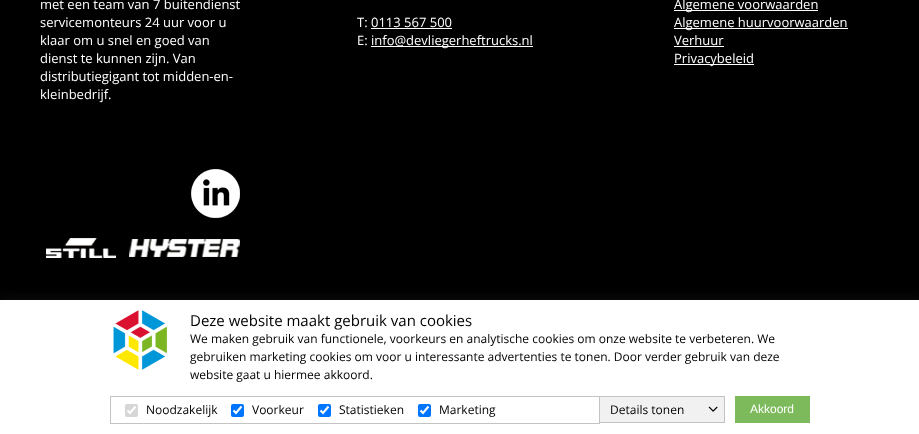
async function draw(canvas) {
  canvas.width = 919;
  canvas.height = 434;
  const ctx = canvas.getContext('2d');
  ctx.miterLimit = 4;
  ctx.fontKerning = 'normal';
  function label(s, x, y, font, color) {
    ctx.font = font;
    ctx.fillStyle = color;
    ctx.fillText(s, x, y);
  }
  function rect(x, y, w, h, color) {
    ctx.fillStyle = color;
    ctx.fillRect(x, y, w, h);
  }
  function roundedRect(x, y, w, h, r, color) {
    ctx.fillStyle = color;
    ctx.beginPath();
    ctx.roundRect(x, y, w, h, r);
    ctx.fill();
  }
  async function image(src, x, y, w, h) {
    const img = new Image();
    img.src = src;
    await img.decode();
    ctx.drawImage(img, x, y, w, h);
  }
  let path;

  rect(0, 0, 919, 434, '#000');
  label('met een team van 7 buitendienst', 40, 9, '13px Open Sans', '#fff');
  label('servicemonteurs 24 uur voor u', 40, 27, '13px Open Sans', '#fff');
  label('klaar om u snel en goed van', 40, 45, '13px Open Sans', '#fff');
  label('dienst te kunnen zijn. Van', 40, 63, '13px Open Sans', '#fff');
  label('distributiegigant tot midden-en-', 40, 81, '13px Open Sans', '#fff');
  label('kleinbedrijf.', 40, 99, '13px Open Sans', '#fff');
  label('T: 0113 567 500', 357, 27, '13px Open Sans', '#fff');
  rect(371, 28, 81, 1, '#fff');
  label('E:', 357, 45, '13px Open Sans', '#fff');
  rect(371, 46, 162, 1, '#fff');
  label('info@devliegerheftrucks.nl', 371, 45, '13px Open Sans', '#fff');
  rect(674, 10, 144, 1, '#fff');
  label('Algemene voorwaarden', 674, 9, '13px Open Sans', '#fff');
  rect(674, 28, 174, 1, '#fff');
  label('Algemene huurvoorwaarden', 674, 27, '13px Open Sans', '#fff');
  label('Verhuur', 674, 45, '13px Open Sans', '#fff');
  rect(674, 46, 50, 1, '#fff');
  rect(674, 64, 80, 1, '#fff');
  label('Privacybeleid', 674, 63, '13px Open Sans', '#fff');
  await image('assets/img1.png', 191, 169, 49, 49);
  await image('assets/img2.png', 46, 238, 70, 20);
  await image('assets/img3.png', 129, 239, 111, 18);
  ctx.fillStyle = '#121212';
  ctx.filter = 'blur(7px)';
  ctx.beginPath();
  ctx.rect(0, 300, 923, 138);
  ctx.fill();
  ctx.filter = 'none';
  rect(0, 300, 919, 134, '#fff');
  await image('assets/img4.png', 113, 310, 55, 60);
  label('Deze website maakt gebruik van cookies', 190, 326, '15px Open Sans', '#000');
  label('We maken gebruik van functionele, voorkeurs en analytische cookies om onze website te verbeteren. We', 190, 343, '12px Open Sans', '#000');
  label('gebruiken marketing cookies om voor u interessante advertenties te tonen. Door verder gebruik van deze', 190, 361, '12px Open Sans', '#000');
  label('website gaat u hiermee akkoord.', 190, 379, '12px Open Sans', '#000');
  ctx.strokeStyle = '#c3c3c3';
  ctx.strokeRect(110.5, 396.5, 489, 27);
  roundedRect(125, 404, 13, 13, 2, '#d6d6d6');
  path = new Path2D('M127.5 410.5L130 413L135.5 406.5');
  ctx.strokeStyle = '#fff';
  ctx.lineWidth = 2.1;
  ctx.stroke(path);
  label('Noodzakelijk', 146, 414, '12px Open Sans', '#000');
  roundedRect(231, 404, 13, 13, 2, '#0075ff');
  path = new Path2D('M233.5 410.5L236 413L241.5 406.5');
  ctx.stroke(path);
  label('Voorkeur', 252, 414, '12px Open Sans', '#000');
  roundedRect(318, 404, 13, 13, 2, '#0075ff');
  path = new Path2D('M320.5 410.5L323 413L328.5 406.5');
  ctx.stroke(path);
  label('Statistieken', 339, 414, '12px Open Sans', '#000');
  roundedRect(418, 404, 13, 13, 2, '#0075ff');
  path = new Path2D('M420.5 410.5L423 413L428.5 406.5');
  ctx.stroke(path);
  label('Marketing', 439, 414, '12px Open Sans', '#000');
  rect(600, 397, 124, 25, '#f1f1f1');
  rect(600, 396, 125, 1, '#c3c3c3');
  rect(724, 396, 1, 27, '#c3c3c3');
  rect(600, 422, 125, 1, '#c3c3c3');
  label('Details tonen', 610, 414, '12px Open Sans', '#000');
  await image('assets/img5.png', 708, 406, 10, 6);
  rect(735, 396, 75, 27, '#7cba5b');
  label('Akkoord', 750, 413, '12px Liberation Sans', '#fff');
}

draw(document.querySelector('canvas'));
